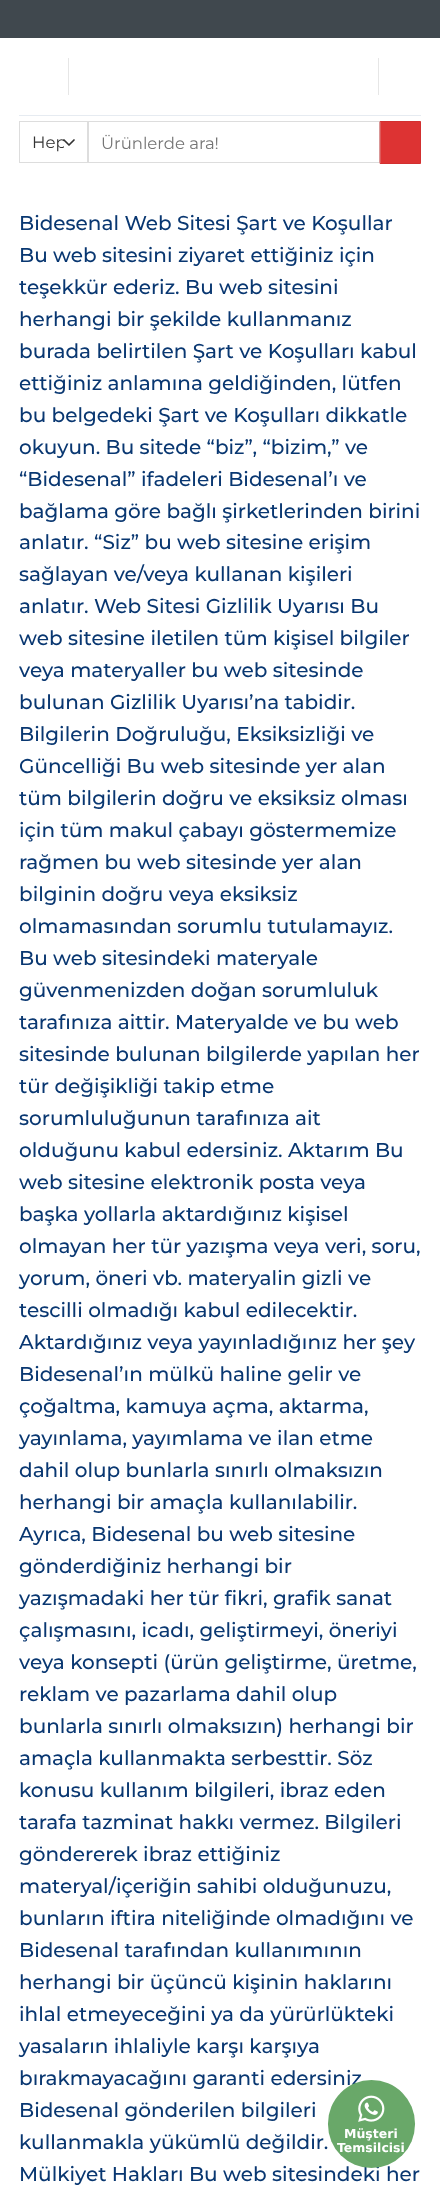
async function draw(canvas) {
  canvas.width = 440;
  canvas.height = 2192;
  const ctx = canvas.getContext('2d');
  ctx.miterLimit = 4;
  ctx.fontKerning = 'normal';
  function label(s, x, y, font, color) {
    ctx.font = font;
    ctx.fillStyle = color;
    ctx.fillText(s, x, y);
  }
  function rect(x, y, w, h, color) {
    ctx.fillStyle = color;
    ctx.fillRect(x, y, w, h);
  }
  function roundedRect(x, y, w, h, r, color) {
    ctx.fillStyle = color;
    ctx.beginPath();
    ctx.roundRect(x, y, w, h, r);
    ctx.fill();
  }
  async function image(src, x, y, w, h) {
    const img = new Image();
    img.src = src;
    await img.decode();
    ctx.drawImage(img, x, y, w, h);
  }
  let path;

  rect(0, 0, 440, 2192, '#fff');
  rect(0, 0, 440, 38, '#40484e');
  rect(68, 58, 1, 37, '#e6e6e6');
  rect(378, 58, 1, 37, '#e6e6e6');
  rect(19, 115, 402, 1, '#e6ebf1');
  path = new Path2D('M64 140L69 145L74 140');
  ctx.strokeStyle = '#333';
  ctx.lineWidth = 1.7;
  ctx.lineCap = 'round';
  ctx.lineJoin = 'round';
  ctx.stroke(path);
  ctx.strokeStyle = '#ddd';
  ctx.lineWidth = 1;
  ctx.lineJoin = 'miter';
  ctx.strokeRect(19.5, 121.5, 68, 41);
  ctx.save();
  ctx.beginPath();
  ctx.rect(33, 129, 31, 26);
  ctx.clip();
  label('Hep', 32, 148, '16.5px Montserrat', '#333');
  ctx.restore();
  ctx.strokeRect(88.5, 121.5, 291, 41);
  label('Ürünlerde ara!', 101, 149, '16.5px Montserrat', '#757575');
  ctx.fillStyle = '#d33';
  ctx.beginPath();
  ctx.rect(380.5, 121.5, 40, 42);
  ctx.fill();
  ctx.strokeStyle = '#d23030';
  ctx.stroke();
  label('Bidesenal Web Sitesi Şart ve Koşullar', 19, 230, '500 20px Montserrat', '#093771');
  label('Bu web sitesini ziyaret ettiğiniz için', 19, 262, '500 20px Montserrat', '#093771');
  label('teşekkür ederiz. Bu web sitesini', 19, 294, '500 20px Montserrat', '#093771');
  label('herhangi bir şekilde kullanmanız', 19, 326, '500 20px Montserrat', '#093771');
  label('burada belirtilen Şart ve Koşulları kabul', 19, 358, '500 20px Montserrat', '#093771');
  label('ettiğiniz anlamına geldiğinden, lütfen', 19, 390, '500 20px Montserrat', '#093771');
  label('bu belgedeki Şart ve Koşulları dikkatle', 19, 422, '500 20px Montserrat', '#093771');
  label('okuyun. Bu sitede “biz”, “bizim,” ve', 19, 454, '500 20px Montserrat', '#093771');
  label('“Bidesenal” ifadeleri Bidesenal’ı ve', 19, 486, '500 20px Montserrat', '#093771');
  label('bağlama göre bağlı şirketlerinden birini', 19, 518, '500 20px Montserrat', '#093771');
  label('anlatır. “Siz” bu web sitesine erişim', 19, 549, '500 20px Montserrat', '#093771');
  label('sağlayan ve/veya kullanan kişileri', 19, 581, '500 20px Montserrat', '#093771');
  label('anlatır. Web Sitesi Gizlilik Uyarısı Bu', 19, 613, '500 20px Montserrat', '#093771');
  label('web sitesine iletilen tüm kişisel bilgiler', 19, 645, '500 20px Montserrat', '#093771');
  label('veya materyaller bu web sitesinde', 19, 677, '500 20px Montserrat', '#093771');
  label('bulunan Gizlilik Uyarısı’na tabidir.', 19, 709, '500 20px Montserrat', '#093771');
  label('Bilgilerin Doğruluğu, Eksiksizliği ve', 19, 741, '500 20px Montserrat', '#093771');
  label('Güncelliği Bu web sitesinde yer alan', 19, 773, '500 20px Montserrat', '#093771');
  label('tüm bilgilerin doğru ve eksiksiz olması', 19, 805, '500 20px Montserrat', '#093771');
  label('için tüm makul çabayı göstermemize', 19, 837, '500 20px Montserrat', '#093771');
  label('rağmen bu web sitesinde yer alan', 19, 869, '500 20px Montserrat', '#093771');
  label('bilginin doğru veya eksiksiz', 19, 901, '500 20px Montserrat', '#093771');
  label('olmamasından sorumlu tutulamayız.', 19, 933, '500 20px Montserrat', '#093771');
  label('Bu web sitesindeki materyale', 19, 965, '500 20px Montserrat', '#093771');
  label('güvenmenizden doğan sorumluluk', 19, 997, '500 20px Montserrat', '#093771');
  label('tarafınıza aittir. Materyalde ve bu web', 19, 1029, '500 20px Montserrat', '#093771');
  label('sitesinde bulunan bilgilerde yapılan her', 19, 1061, '500 20px Montserrat', '#093771');
  label('tür değişikliği takip etme', 19, 1093, '500 20px Montserrat', '#093771');
  label('sorumluluğunun tarafınıza ait', 19, 1125, '500 20px Montserrat', '#093771');
  label('olduğunu kabul edersiniz. Aktarım Bu', 19, 1157, '500 20px Montserrat', '#093771');
  label('web sitesine elektronik posta veya', 19, 1189, '500 20px Montserrat', '#093771');
  label('başka yollarla aktardığınız kişisel', 19, 1221, '500 20px Montserrat', '#093771');
  label('olmayan her tür yazışma veya veri, soru,', 19, 1253, '500 20px Montserrat', '#093771');
  label('yorum, öneri vb. materyalin gizli ve', 19, 1285, '500 20px Montserrat', '#093771');
  label('tescilli olmadığı kabul edilecektir.', 19, 1317, '500 20px Montserrat', '#093771');
  label('Aktardığınız veya yayınladığınız her şey', 19, 1349, '500 20px Montserrat', '#093771');
  label('Bidesenal’ın mülkü haline gelir ve', 19, 1381, '500 20px Montserrat', '#093771');
  label('çoğaltma, kamuya açma, aktarma,', 19, 1413, '500 20px Montserrat', '#093771');
  label('yayınlama, yayımlama ve ilan etme', 19, 1445, '500 20px Montserrat', '#093771');
  label('dahil olup bunlarla sınırlı olmaksızın', 19, 1477, '500 20px Montserrat', '#093771');
  label('herhangi bir amaçla kullanılabilir.', 19, 1509, '500 20px Montserrat', '#093771');
  label('Ayrıca, Bidesenal bu web sitesine', 19, 1541, '500 20px Montserrat', '#093771');
  label('gönderdiğiniz herhangi bir', 19, 1573, '500 20px Montserrat', '#093771');
  label('yazışmadaki her tür fikri, grafik sanat', 19, 1605, '500 20px Montserrat', '#093771');
  label('çalışmasını, icadı, geliştirmeyi, öneriyi', 19, 1637, '500 20px Montserrat', '#093771');
  label('veya konsepti (ürün geliştirme, üretme,', 19, 1669, '500 20px Montserrat', '#093771');
  label('reklam ve pazarlama dahil olup', 19, 1701, '500 20px Montserrat', '#093771');
  label('bunlarla sınırlı olmaksızın) herhangi bir', 19, 1733, '500 20px Montserrat', '#093771');
  label('amaçla kullanmakta serbesttir. Söz', 19, 1765, '500 20px Montserrat', '#093771');
  label('konusu kullanım bilgileri, ibraz eden', 19, 1797, '500 20px Montserrat', '#093771');
  label('tarafa tazminat hakkı vermez. Bilgileri', 19, 1829, '500 20px Montserrat', '#093771');
  label('göndererek ibraz ettiğiniz', 19, 1861, '500 20px Montserrat', '#093771');
  label('materyal/içeriğin sahibi olduğunuzu,', 19, 1893, '500 20px Montserrat', '#093771');
  label('bunların iftira niteliğinde olmadığını ve', 19, 1925, '500 20px Montserrat', '#093771');
  label('Bidesenal tarafından kullanımının', 19, 1957, '500 20px Montserrat', '#093771');
  label('herhangi bir üçüncü kişinin haklarını', 19, 1989, '500 20px Montserrat', '#093771');
  label('ihlal etmeyeceğini ya da yürürlükteki', 19, 2021, '500 20px Montserrat', '#093771');
  label('yasaların ihlaliyle karşı karşıya', 19, 2053, '500 20px Montserrat', '#093771');
  label('bırakmayacağını garanti edersiniz', 19, 2085, '500 20px Montserrat', '#093771');
  label('Bidesenal gönderilen bilgileri', 19, 2117, '500 20px Montserrat', '#093771');
  label('kullanmakla yükümlü değildir.', 19, 2149, '500 20px Montserrat', '#093771');
  label('Mülkiyet Hakları Bu web sitesindeki her', 19, 2181, '500 20px Montserrat', '#093771');
  roundedRect(328, 2080, 87, 88, 43.5, '#69a869');
  await image('assets/img1.png', 358, 2095, 27, 27);
  label('Müşteri', 344, 2138, 'bold 12.5px DejaVu Sans', '#fff');
  label('Temsilcisi', 337, 2152, 'bold 12.5px DejaVu Sans', '#fff');
}

draw(document.querySelector('canvas'));
